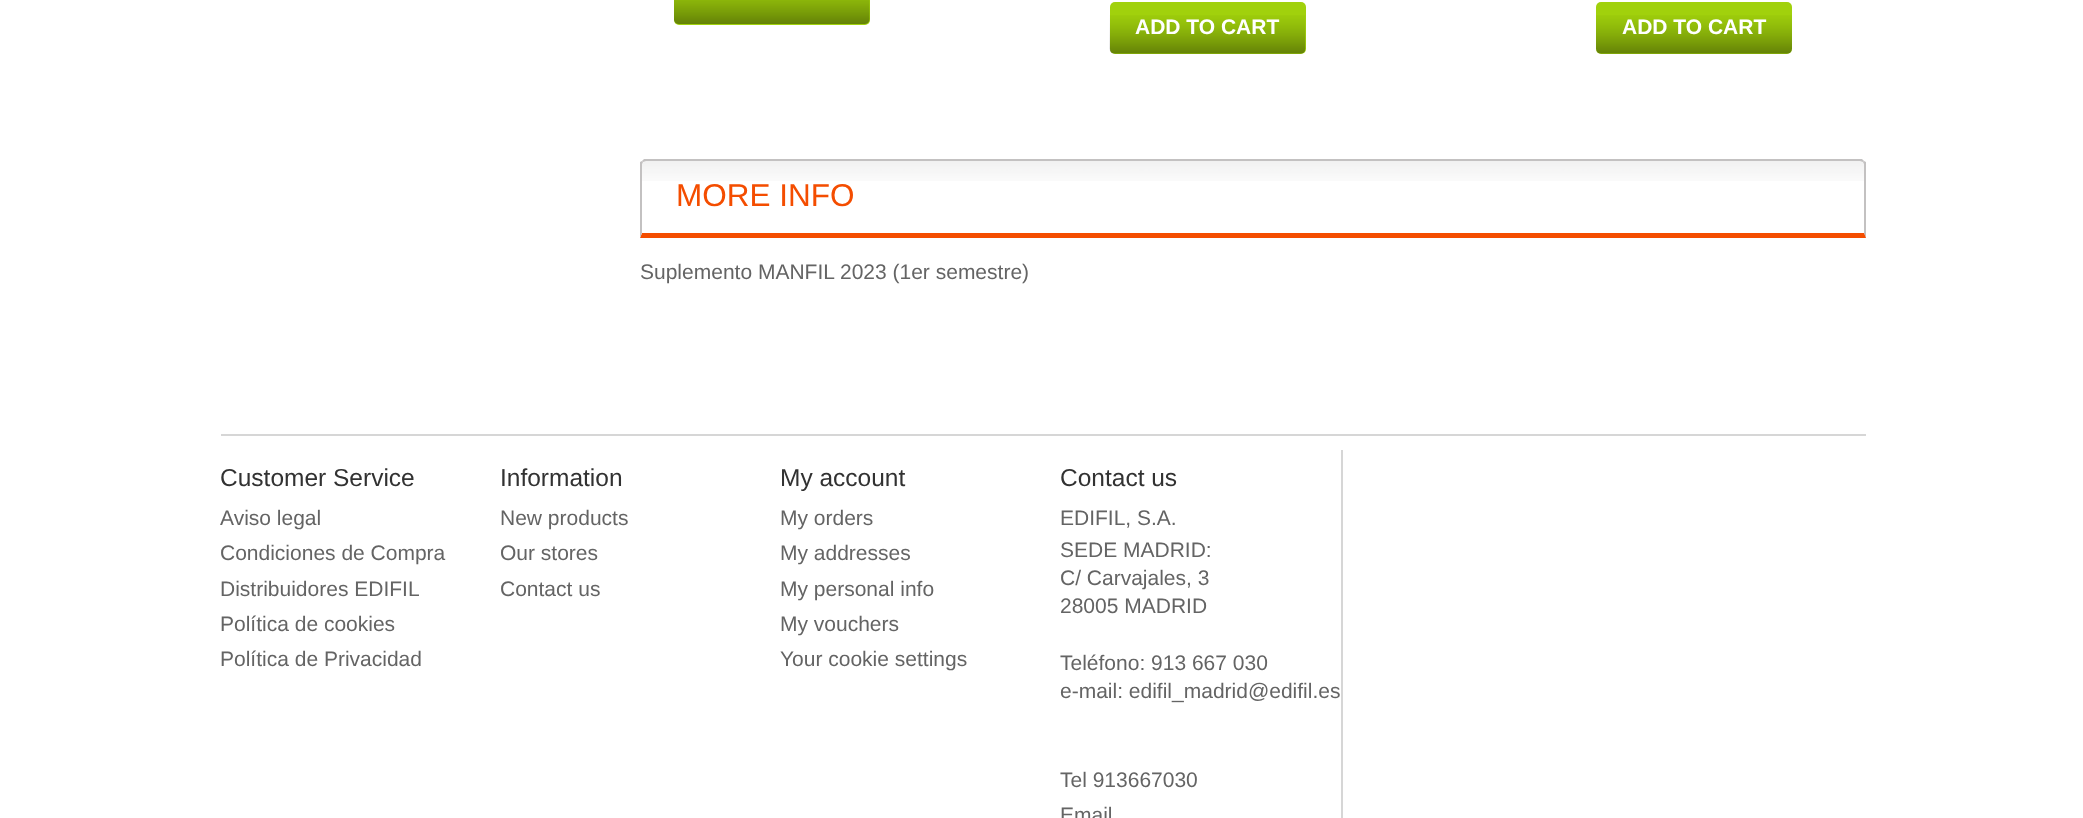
async function draw(canvas) {
  canvas.width = 2083;
  canvas.height = 818;
  const ctx = canvas.getContext('2d');
  ctx.miterLimit = 4;
  ctx.fontKerning = 'normal';
  function label(s, x, y, font, color) {
    ctx.font = font;
    ctx.fillStyle = color;
    ctx.fillText(s, x, y);
  }
  function rect(x, y, w, h, color) {
    ctx.fillStyle = color;
    ctx.fillRect(x, y, w, h);
  }
  function roundedRect(x, y, w, h, r, color) {
    ctx.fillStyle = color;
    ctx.beginPath();
    ctx.roundRect(x, y, w, h, r);
    ctx.fill();
  }
  async function image(src, x, y, w, h) {
    const img = new Image();
    img.src = src;
    await img.decode();
    ctx.drawImage(img, x, y, w, h);
  }
  let path;

  rect(0, 0, 2083, 818, '#fff');
  roundedRect(674, -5, 196, 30, 5, '#a1d10c');
  await image('assets/img1.png', 674, 0, 196, 24);
  roundedRect(1110, 2, 196, 52, 5, '#a1d10c');
  await image('assets/img2.png', 1109, 15, 197, 39);
  label('ADD TO CART', 1135, 34, 'bold 21px Liberation Sans', '#fff');
  roundedRect(1596, 2, 196, 52, 5, '#a1d10c');
  await image('assets/img3.png', 1596, 15, 196, 39);
  label('ADD TO CART', 1622, 34, 'bold 21px Liberation Sans', '#fff');
  await image('assets/img4.png', 641, 160, 1224, 21);
  ctx.fillStyle = '#c3c1c1';
  path = new Path2D('M646 161L643 162L642 161L644 159H1862L1864 161L1863 162L1860 161Z');
  ctx.fill(path);
  path = new Path2D('M1866 162V238L1864 233V164L1863 162L1864 161Z');
  ctx.fill(path);
  ctx.fillStyle = '#f44d00';
  path = new Path2D('M1866 238L1864 233H642L640 238Z');
  ctx.fill(path);
  ctx.fillStyle = '#c3c1c1';
  path = new Path2D('M640 238V162L642 161L643 162L642 164V233Z');
  ctx.fill(path);
  label('MORE INFO', 676, 206, '31.5px Liberation Sans', '#f44d00');
  label('Suplemento MANFIL 2023 (1er semestre)', 640, 279, '21px Liberation Sans', '#646464');
  rect(221, 434, 1645, 2, '#d6d6d6');
  label('Customer Service', 220, 486, '24.5px Liberation Sans', '#323232');
  label('Aviso legal', 220, 525, '21px Liberation Sans', '#646464');
  label('Condiciones de Compra', 220, 560, '21px Liberation Sans', '#646464');
  label('Distribuidores EDIFIL', 220, 596, '21px Liberation Sans', '#646464');
  label('Política de cookies', 220, 631, '21px Liberation Sans', '#646464');
  label('Política de Privacidad', 220, 666, '21px Liberation Sans', '#646464');
  label('Information', 500, 486, '24.5px Liberation Sans', '#323232');
  label('New products', 500, 525, '21px Liberation Sans', '#646464');
  label('Our stores', 500, 560, '21px Liberation Sans', '#646464');
  label('Contact us', 500, 596, '21px Liberation Sans', '#646464');
  label('My account', 780, 486, '24.5px Liberation Sans', '#323232');
  label('My orders', 780, 525, '21px Liberation Sans', '#646464');
  label('My addresses', 780, 560, '21px Liberation Sans', '#646464');
  label('My personal info', 780, 596, '21px Liberation Sans', '#646464');
  label('My vouchers', 780, 631, '21px Liberation Sans', '#646464');
  label('Your cookie settings', 780, 666, '21px Liberation Sans', '#646464');
  label('Contact us', 1060, 486, '24.5px Liberation Sans', '#323232');
  label('EDIFIL, S.A.', 1060, 525, '21px Liberation Sans', '#646464');
  label('SEDE MADRID:', 1060, 557, '21px Liberation Sans', '#646464');
  label('C/ Carvajales, 3', 1060, 585, '21px Liberation Sans', '#646464');
  label('28005 MADRID', 1060, 613, '21px Liberation Sans', '#646464');
  label('Teléfono: 913 667 030', 1060, 670, '21px Liberation Sans', '#646464');
  label('e-mail: edifil_madrid@edifil.es', 1060, 698, '21px Liberation Sans', '#646464');
  label('Tel 913667030', 1060, 787, '21px Liberation Sans', '#646464');
  label('Email', 1060, 822, '21px Liberation Sans', '#646464');
  rect(1341, 450, 2, 368, '#d6d6d6');
}

draw(document.querySelector('canvas'));
